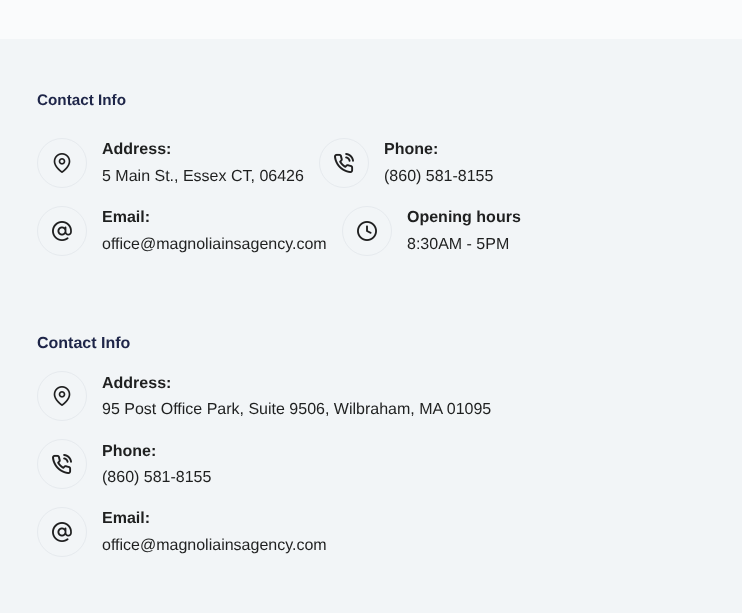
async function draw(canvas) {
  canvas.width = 742;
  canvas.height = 613;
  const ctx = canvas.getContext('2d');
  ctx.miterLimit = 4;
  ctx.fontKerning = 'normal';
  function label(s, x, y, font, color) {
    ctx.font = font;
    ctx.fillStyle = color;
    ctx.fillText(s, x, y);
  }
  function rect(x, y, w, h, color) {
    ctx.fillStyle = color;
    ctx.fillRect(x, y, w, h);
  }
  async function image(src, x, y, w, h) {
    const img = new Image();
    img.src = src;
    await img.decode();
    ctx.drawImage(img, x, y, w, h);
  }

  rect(0, 0, 742, 613, '#fafbfc');
  rect(0, 39, 742, 574, '#f2f5f7');
  label('Contact Info', 37, 105, 'bold 15.25px Liberation Sans', '#1e2548');
  ctx.beginPath();
  ctx.arc(62, 163, 24.5, 0, 2 * Math.PI);
  ctx.strokeStyle = '#e6eaee';
  ctx.stroke();
  await image('assets/img1.png', 53, 153, 18, 20);
  label('Address:', 102, 154, 'bold 16px Liberation Sans', '#1f2020');
  label('5 Main St., Essex CT, 06426', 102, 181, '16px Liberation Sans', '#1f2020');
  ctx.beginPath();
  ctx.arc(344, 163, 24.5, 0, 2 * Math.PI);
  ctx.stroke();
  await image('assets/img2.png', 334, 153, 20, 20);
  label('Phone:', 384, 154, 'bold 16px Liberation Sans', '#1f2020');
  label('(860) 581-8155', 384, 181, '16px Liberation Sans', '#1f2020');
  ctx.beginPath();
  ctx.arc(62, 231, 24.5, 0, 2 * Math.PI);
  ctx.stroke();
  await image('assets/img3.png', 52, 221, 20, 20);
  label('Email:', 102, 222, 'bold 16px Liberation Sans', '#1f2020');
  label('office@magnoliainsagency.com', 102, 249, '16px Liberation Sans', '#1f2020');
  ctx.beginPath();
  ctx.arc(367, 231, 24.5, 0, 2 * Math.PI);
  ctx.stroke();
  await image('assets/img4.png', 357, 221, 20, 20);
  label('Opening hours', 407, 222, 'bold 16px Liberation Sans', '#1f2020');
  label('8:30AM - 5PM', 407, 249, '16px Liberation Sans', '#1f2020');
  label('Contact Info', 37, 348, 'bold 16px Liberation Sans', '#1e2548');
  ctx.beginPath();
  ctx.arc(62, 396, 24.5, 0, 2 * Math.PI);
  ctx.stroke();
  await image('assets/img1.png', 53, 386, 18, 20);
  label('Address:', 102, 388, 'bold 16px Liberation Sans', '#1f2020');
  label('95 Post Office Park, Suite 9506, Wilbraham, MA 01095', 102, 414, '16px Liberation Sans', '#1f2020');
  ctx.beginPath();
  ctx.arc(62, 464, 24.5, 0, 2 * Math.PI);
  ctx.stroke();
  await image('assets/img2.png', 52, 454, 20, 20);
  label('Phone:', 102, 456, 'bold 16px Liberation Sans', '#1f2020');
  label('(860) 581-8155', 102, 482, '16px Liberation Sans', '#1f2020');
  ctx.beginPath();
  ctx.arc(62, 532, 24.5, 0, 2 * Math.PI);
  ctx.stroke();
  await image('assets/img3.png', 52, 522, 20, 20);
  label('Email:', 102, 523, 'bold 16px Liberation Sans', '#1f2020');
  label('office@magnoliainsagency.com', 102, 550, '16px Liberation Sans', '#1f2020');
}

draw(document.querySelector('canvas'));
